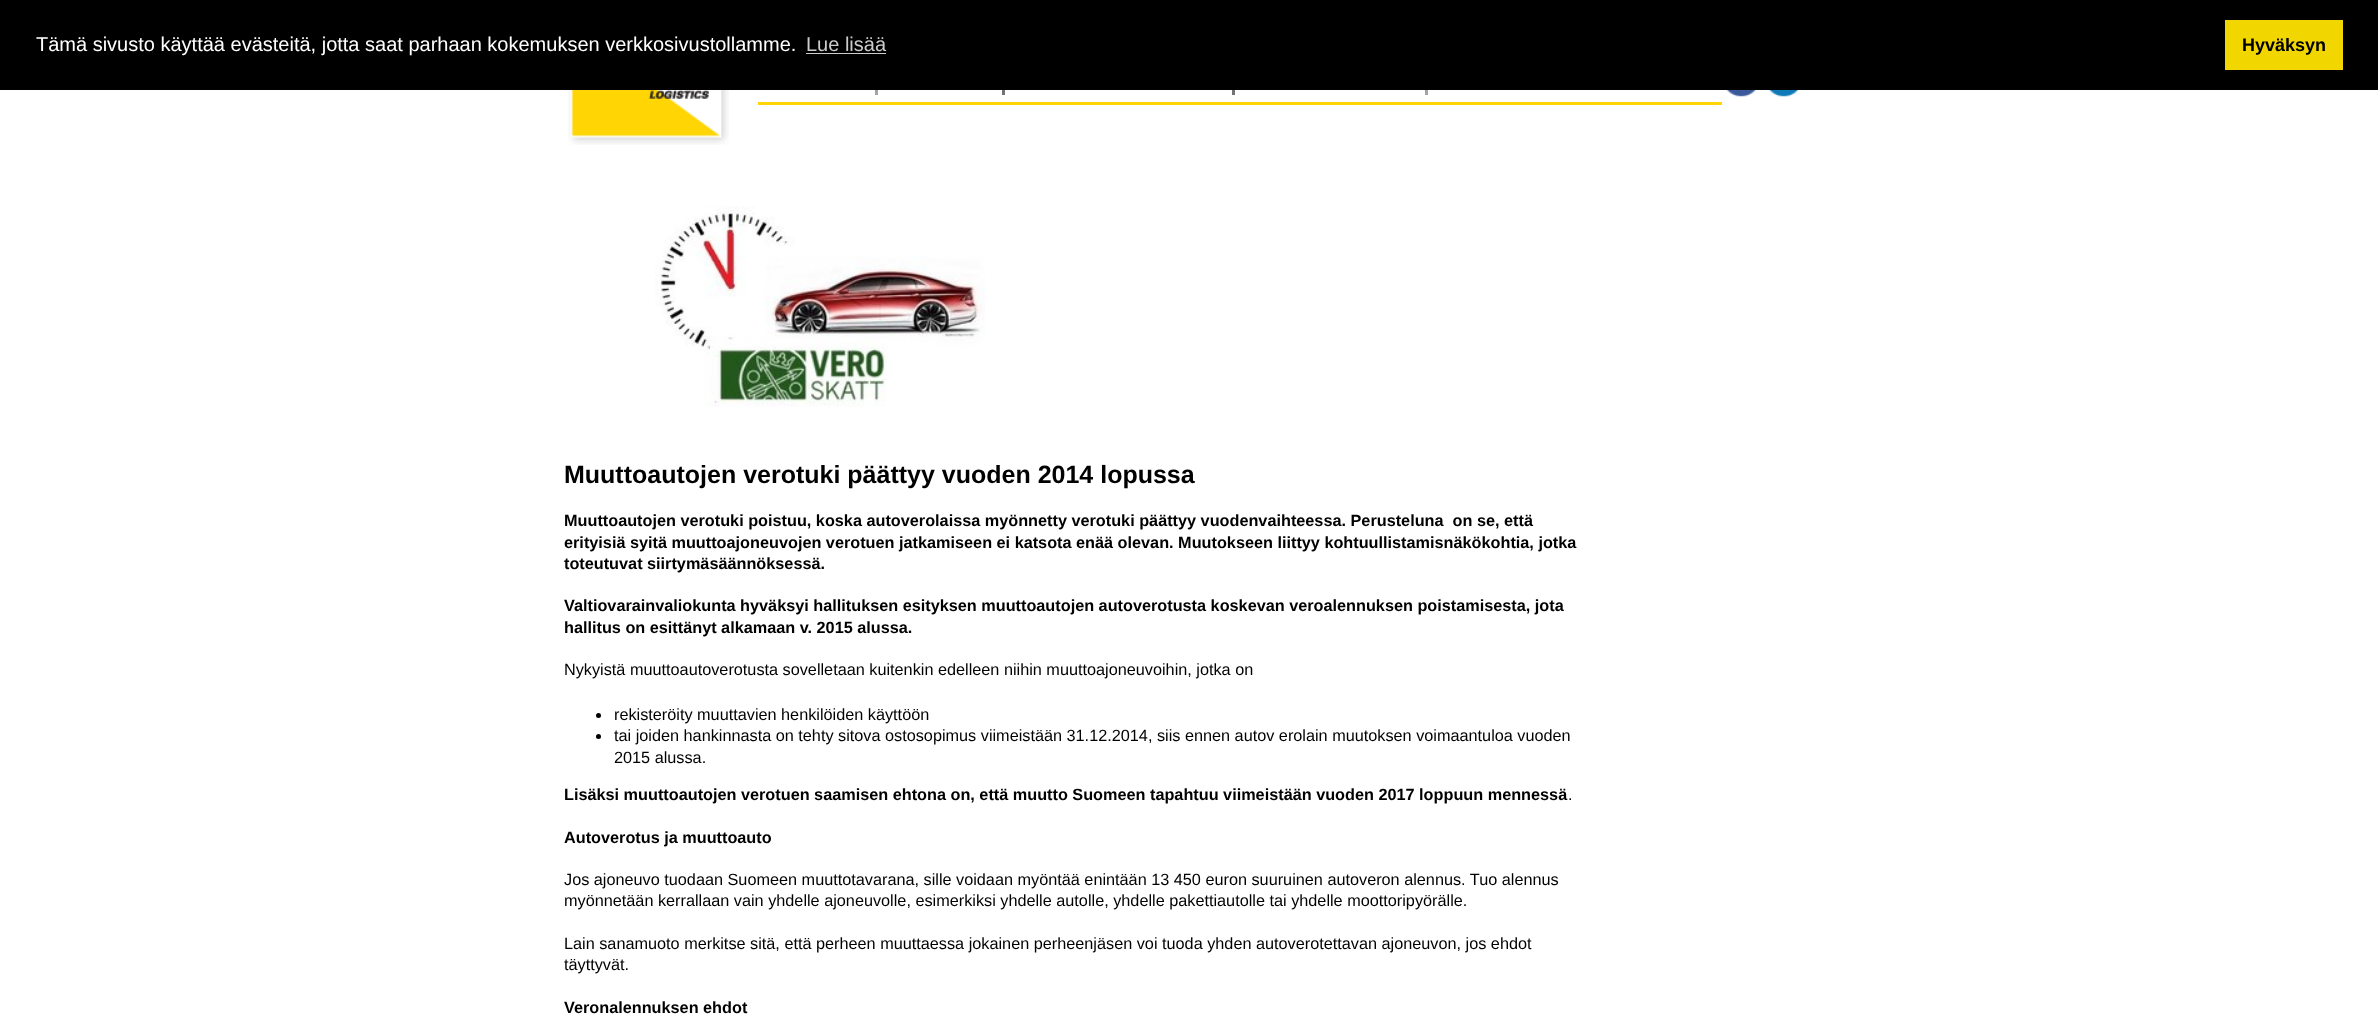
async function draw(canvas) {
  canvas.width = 2378;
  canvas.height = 1027;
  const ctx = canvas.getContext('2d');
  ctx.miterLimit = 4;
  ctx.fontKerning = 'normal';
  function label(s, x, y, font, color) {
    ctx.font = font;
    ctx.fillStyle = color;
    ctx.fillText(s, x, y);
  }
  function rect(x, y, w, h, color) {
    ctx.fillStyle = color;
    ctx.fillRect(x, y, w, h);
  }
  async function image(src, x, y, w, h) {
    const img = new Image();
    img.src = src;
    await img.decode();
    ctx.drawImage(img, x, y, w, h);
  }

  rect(0, 0, 2378, 1027, '#fff');
  rect(0, 0, 2378, 90, '#000');
  label('Tämä sivusto käyttää evästeitä, jotta saat parhaan kokemuksen verkkosivustollamme.', 36, 51, '20px Liberation Sans', '#fff');
  label('Lue lisää', 806, 51, '20px Liberation Sans', '#ccc');
  rect(806, 53, 80, 1, '#ccc');
  rect(2225, 20, 118, 50, '#f1d600');
  label('Hyväksyn', 2242, 51, 'bold 18px Liberation Sans', '#000');
  await image('assets/img1.png', 568, 90, 161, 55);
  rect(758, 102, 964, 3, '#ffd505');
  rect(875, 90, 3, 5, '#a5a4a4');
  rect(1002, 90, 3, 5, '#757373');
  rect(1232, 90, 3, 5, '#757373');
  rect(1425, 90, 3, 5, '#a5a4a4');
  await image('assets/img2.png', 1726, 90, 30, 7);
  await image('assets/img3.png', 1769, 90, 30, 7);
  await image('assets/img4.png', 655, 206, 330, 201);
  label('Muuttoautojen verotuki päättyy vuoden 2014 lopussa', 564, 483, 'bold 25px Liberation Sans', '#000');
  label('Muuttoautojen verotuki poistuu, koska autoverolaissa myönnetty verotuki päättyy vuodenvaihteessa. Perusteluna  on se, että', 564, 526, 'bold 16.25px Liberation Sans', '#000');
  label('erityisiä syitä muuttoajoneuvojen verotuen jatkamiseen ei katsota enää olevan. Muutokseen liittyy kohtuullistamisnäkökohtia, jotka', 564, 548, 'bold 16.25px Liberation Sans', '#000');
  label('toteutuvat siirtymäsäännöksessä.', 564, 569, 'bold 16.25px Liberation Sans', '#000');
  label('Valtiovarainvaliokunta hyväksyi hallituksen esityksen muuttoautojen autoverotusta koskevan veroalennuksen poistamisesta, jota', 564, 611, 'bold 16.25px Liberation Sans', '#000');
  label('hallitus on esittänyt alkamaan v. 2015 alussa.', 564, 633, 'bold 16.25px Liberation Sans', '#000');
  label('Nykyistä muuttoautoverotusta sovelletaan kuitenkin edelleen niihin muuttoajoneuvoihin, jotka on', 564, 675, '16.25px Liberation Sans', '#000');
  ctx.beginPath();
  ctx.arc(598.5, 715.5, 2.5, 0, 2 * Math.PI);
  ctx.fill();
  label('rekisteröity muuttavien henkilöiden käyttöön', 614, 720, '16.25px Liberation Sans', '#000');
  ctx.beginPath();
  ctx.arc(598.5, 736.5, 2.5, 0, 2 * Math.PI);
  ctx.fill();
  label('tai joiden hankinnasta on tehty sitova ostosopimus viimeistään 31.12.2014, siis ennen autov erolain muutoksen voimaantuloa vuoden', 614, 741, '16.25px Liberation Sans', '#000');
  label('2015 alussa.', 614, 763, '16.25px Liberation Sans', '#000');
  label('Lisäksi muuttoautojen verotuen saamisen ehtona on, että muutto Suomeen tapahtuu viimeistään vuoden 2017 loppuun mennessä', 564, 800, 'bold 16.25px Liberation Sans', '#000');
  label('.', 1568, 800, '16.25px Liberation Sans', '#000');
  label('Autoverotus ja muuttoauto', 564, 843, 'bold 16.25px Liberation Sans', '#000');
  label('Jos ajoneuvo tuodaan Suomeen muuttotavarana, sille voidaan myöntää enintään 13 450 euron suuruinen autoveron alennus. Tuo alennus', 564, 885, '16.25px Liberation Sans', '#000');
  label('myönnetään kerrallaan vain yhdelle ajoneuvolle, esimerkiksi yhdelle autolle, yhdelle pakettiautolle tai yhdelle moottoripyörälle.', 564, 906, '16.25px Liberation Sans', '#000');
  label('Lain sanamuoto merkitse sitä, että perheen muuttaessa jokainen perheenjäsen voi tuoda yhden autoverotettavan ajoneuvon, jos ehdot', 564, 949, '16.25px Liberation Sans', '#000');
  label('täyttyvät.', 564, 970, '16.25px Liberation Sans', '#000');
  label('Veronalennuksen ehdot', 564, 1013, 'bold 16.25px Liberation Sans', '#000');
}

draw(document.querySelector('canvas'));
